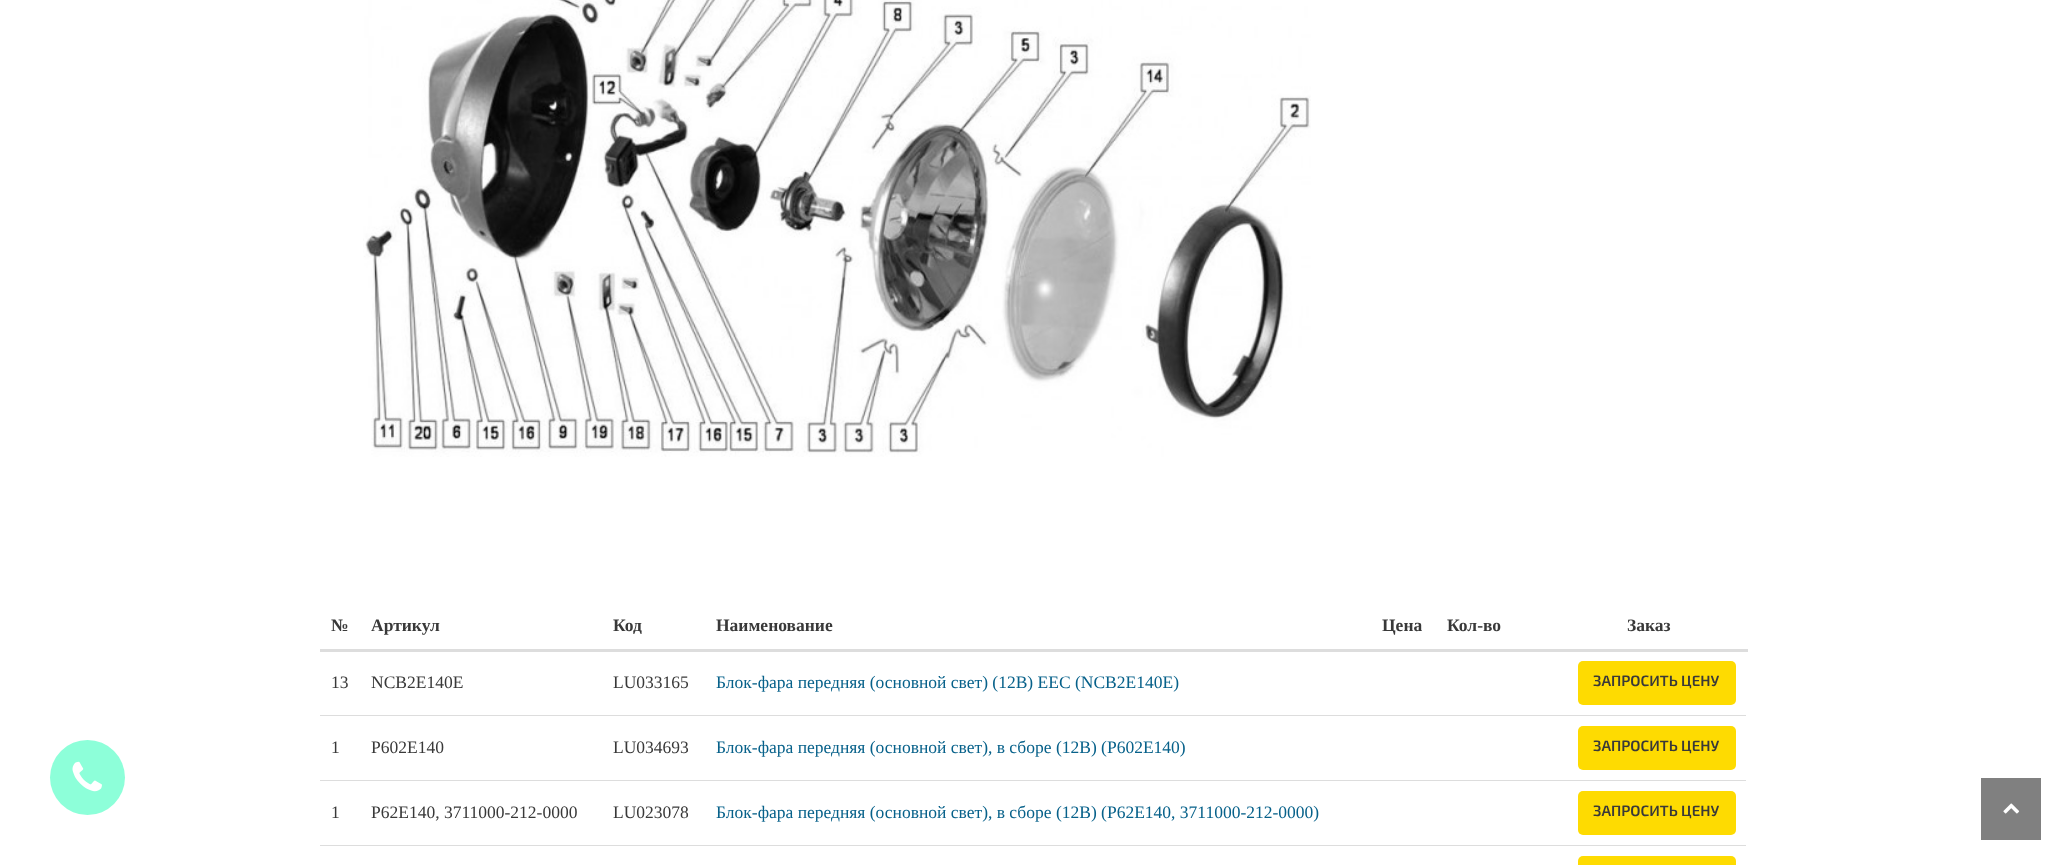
async function draw(canvas) {
  canvas.width = 2066;
  canvas.height = 865;
  const ctx = canvas.getContext('2d');
  ctx.miterLimit = 4;
  ctx.fontKerning = 'normal';
  function label(s, x, y, font, color) {
    ctx.font = font;
    ctx.fillStyle = color;
    ctx.fillText(s, x, y);
  }
  function rect(x, y, w, h, color) {
    ctx.fillStyle = color;
    ctx.fillRect(x, y, w, h);
  }
  function roundedRect(x, y, w, h, r, color) {
    ctx.fillStyle = color;
    ctx.beginPath();
    ctx.roundRect(x, y, w, h, r);
    ctx.fill();
  }
  async function image(src, x, y, w, h) {
    const img = new Image();
    img.src = src;
    await img.decode();
    ctx.drawImage(img, x, y, w, h);
  }

  rect(0, 0, 2066, 865, '#fff');
  ctx.fillStyle = '#8dffd9';
  ctx.beginPath();
  ctx.arc(87.5, 777.5, 37.5, 0, 2 * Math.PI);
  ctx.fill();
  await image('assets/img1.png', 72, 761, 30, 31);
  await image('assets/img2.png', 363, 0, 948, 457);
  label('№', 331, 631, 'bold 17.5px Liberation Serif', '#393939');
  label('Артикул', 371, 631, 'bold 17.5px Liberation Serif', '#393939');
  label('Код', 613, 631, 'bold 17.5px Liberation Serif', '#393939');
  label('Наименование', 716, 631, 'bold 17.5px Liberation Serif', '#393939');
  label('Цена', 1382, 631, 'bold 17.5px Liberation Serif', '#393939');
  label('Кол-во', 1447, 631, 'bold 17.5px Liberation Serif', '#393939');
  rect(320, 649, 1428, 3, '#ddd');
  label('Заказ', 1627, 631, 'bold 17.5px Liberation Serif', '#393939');
  label('13', 331, 688, '17.5px Liberation Serif', '#393939');
  label('NCB2E140E', 371, 688, '17.5px Liberation Serif', '#393939');
  label('LU033165', 613, 688, '17.5px Liberation Serif', '#393939');
  label('Блок-фара передняя (основной свет) (12В) EEC (NCB2E140E)', 716, 688, '17.5px Liberation Serif', '#07618a');
  roundedRect(1578, 661, 158, 44, 5, '#fedb01');
  label('ЗАПРОСИТЬ ЦЕНУ', 1593, 686, '600 15px "Exo 2"', '#393939');
  label('1', 331, 753, '17.5px Liberation Serif', '#393939');
  label('P602E140', 371, 753, '17.5px Liberation Serif', '#393939');
  label('LU034693', 613, 753, '17.5px Liberation Serif', '#393939');
  label('Блок-фара передняя (основной свет), в сборе (12В) (P602E140)', 716, 753, '17.5px Liberation Serif', '#07618a');
  rect(320, 715, 1426, 1, '#ddd');
  roundedRect(1578, 726, 158, 44, 5, '#fedb01');
  label('ЗАПРОСИТЬ ЦЕНУ', 1593, 751, '600 15px "Exo 2"', '#393939');
  label('1', 331, 818, '17.5px Liberation Serif', '#393939');
  label('P62E140, 3711000-212-0000', 371, 818, '17.5px Liberation Serif', '#393939');
  label('LU023078', 613, 818, '17.5px Liberation Serif', '#393939');
  label('Блок-фара передняя (основной свет), в сборе (12В) (P62E140, 3711000-212-0000)', 716, 818, '17.5px Liberation Serif', '#07618a');
  rect(320, 780, 1426, 1, '#ddd');
  roundedRect(1578, 791, 158, 44, 5, '#fedb01');
  label('ЗАПРОСИТЬ ЦЕНУ', 1593, 816, '600 15px "Exo 2"', '#393939');
  rect(320, 845, 1426, 1, '#ddd');
  roundedRect(1578, 856, 158, 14, 5, '#fedb01');
  rect(1981, 778, 60, 62, '#808080');
  await image('assets/img3.png', 2003, 803, 17, 11);
}

draw(document.querySelector('canvas'));
